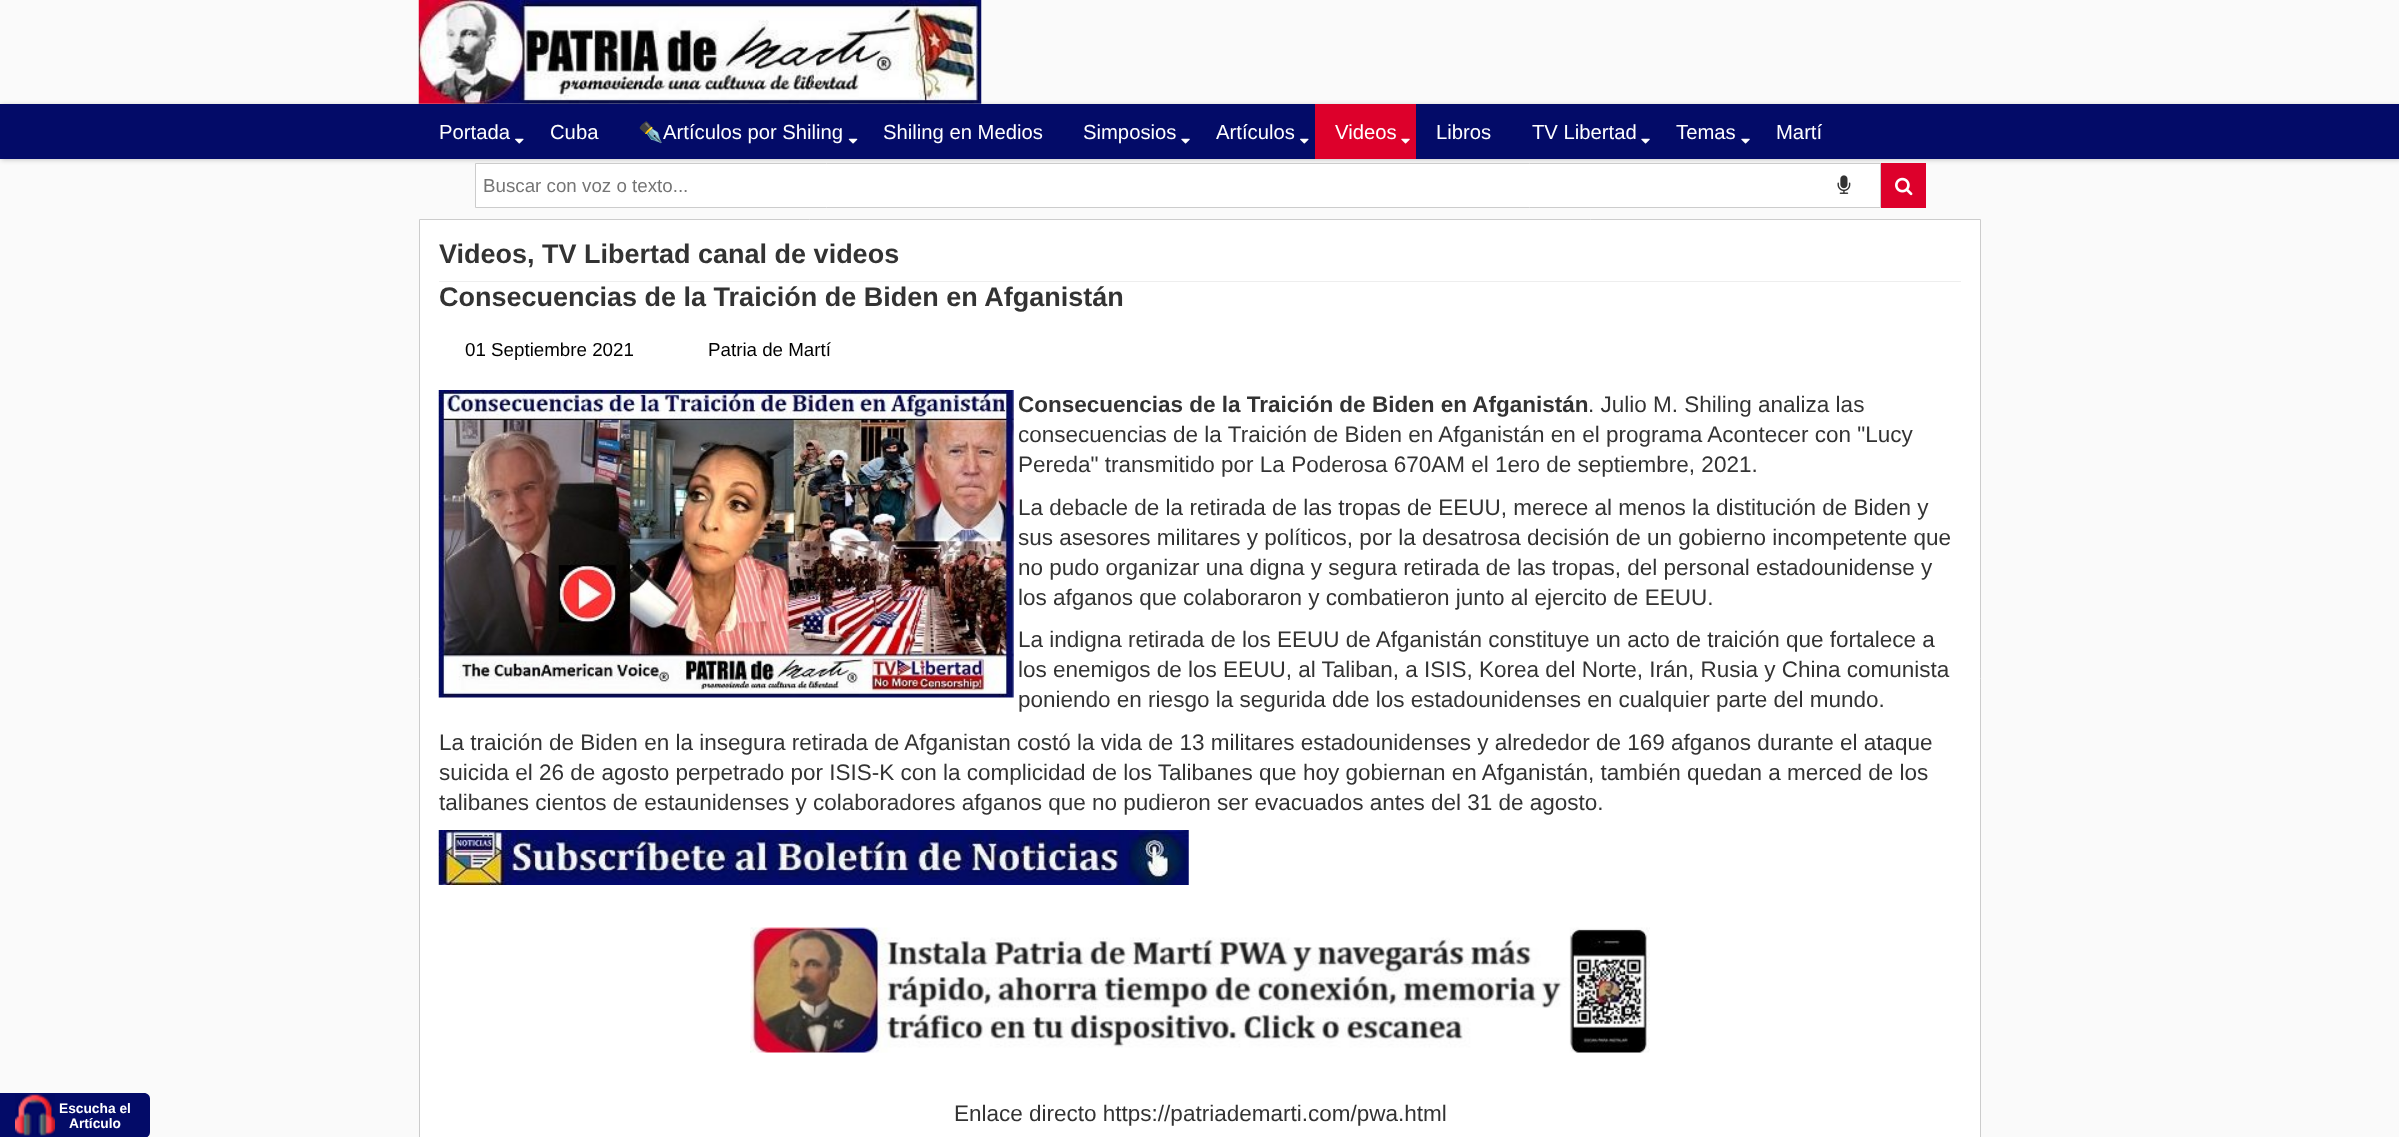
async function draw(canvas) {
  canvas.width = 2399;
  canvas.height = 1137;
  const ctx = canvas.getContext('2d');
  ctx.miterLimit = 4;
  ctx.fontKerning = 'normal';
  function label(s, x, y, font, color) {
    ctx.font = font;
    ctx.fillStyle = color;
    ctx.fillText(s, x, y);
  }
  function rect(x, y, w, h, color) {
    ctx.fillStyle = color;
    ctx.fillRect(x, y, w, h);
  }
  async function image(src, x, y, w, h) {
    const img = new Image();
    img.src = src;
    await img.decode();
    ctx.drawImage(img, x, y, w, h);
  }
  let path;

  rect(0, 0, 2399, 1137, '#fafafa');
  ctx.fillStyle = '#030b68';
  path = new Path2D('M0 1093H144C147.5 1093 150 1095.5 150 1099V1132C150 1135.5 147.5 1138 144 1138H0Z');
  ctx.fill(path);
  await image('assets/img1.png', 15, 1094, 40, 42);
  label('Escucha el', 59, 1113, 'bold 13.75px Liberation Sans', '#fff');
  label('Artículo', 69, 1128, 'bold 13.75px Liberation Sans', '#fff');
  ctx.fillStyle = '#00000033';
  ctx.filter = 'blur(2.5px)';
  ctx.beginPath();
  ctx.rect(1, 105, 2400, 55);
  ctx.fill();
  ctx.filter = 'none';
  await image('assets/img2.png', 418, 0, 564, 104);
  rect(0, 104, 2399, 55, '#030b68');
  label('Portada', 439, 139, '20.25px Liberation Sans', '#fff');
  await image('assets/img3.png', 515, 138, 9, 6);
  label('Cuba', 550, 139, '20.25px Liberation Sans', '#fff');
  label('✒️', 638, 139, '20.25px Noto Color Emoji', '#fff');
  label('Artículos por Shiling', 663, 139, '20.25px Liberation Sans', '#fff');
  await image('assets/img4.png', 848, 138, 10, 6);
  label('Shiling en Medios', 883, 139, '20.25px Liberation Sans', '#fff');
  label('Simposios', 1083, 139, '20.25px Liberation Sans', '#fff');
  await image('assets/img5.png', 1181, 138, 9, 6);
  label('Artículos', 1216, 139, '20.25px Liberation Sans', '#fff');
  await image('assets/img3.png', 1300, 138, 9, 6);
  rect(1315, 104, 101, 55, '#dd002b');
  label('Videos', 1335, 139, '20.25px Liberation Sans', '#fff');
  await image('assets/img6.png', 1401, 138, 9, 6);
  label('Libros', 1436, 139, '20.25px Liberation Sans', '#fff');
  label('TV Libertad', 1532, 139, '20.25px Liberation Sans', '#fff');
  await image('assets/img5.png', 1641, 138, 9, 6);
  label('Temas', 1676, 139, '20.25px Liberation Sans', '#fff');
  await image('assets/img5.png', 1741, 138, 9, 6);
  label('Martí', 1776, 139, '20.25px Liberation Sans', '#fff');
  ctx.beginPath();
  ctx.rect(475.5, 163.5, 1405, 44);
  ctx.fill();
  ctx.strokeStyle = '#ccc';
  ctx.stroke();
  label('Buscar con voz o texto...', 483, 192, '18.75px Liberation Sans', '#757575');
  await image('assets/img7.png', 1837, 175, 14, 19);
  rect(1881, 163, 45, 45, '#dd002b');
  await image('assets/img8.png', 1895, 177, 18, 19);
  ctx.fillStyle = '#fff';
  ctx.beginPath();
  ctx.rect(419.5, 219.5, 1561, 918);
  ctx.fill();
  ctx.stroke();
  rect(439, 281, 1522, 1, '#eee');
  label('Videos, TV Libertad canal de videos', 439, 263, 'bold 27px Liberation Sans', '#333');
  label('Consecuencias de la Traición de Biden en Afganistán', 439, 306, 'bold 27px Liberation Sans', '#333');
  label('01 Septiembre 2021', 465, 356, '18.75px Liberation Sans', '#000');
  label('Patria de Martí', 708, 356, '18.75px Liberation Sans', '#000');
  await image('assets/img9.png', 438, 390, 576, 308);
  label('Consecuencias de la Traición de Biden en Afganistán', 1018, 412, 'bold 22.5px Liberation Sans', '#333');
  label('. Julio M. Shiling analiza las', 1588, 412, '22.5px Liberation Sans', '#333');
  label('consecuencias de la Traición de Biden en Afganistán en el programa Acontecer con "Lucy', 1018, 442, '22.5px Liberation Sans', '#333');
  label('Pereda" transmitido por La Poderosa 670AM el 1ero de septiembre, 2021.', 1018, 472, '22.5px Liberation Sans', '#333');
  label('La debacle de la retirada de las tropas de EEUU, merece al menos la distitución de Biden y', 1018, 515, '22.5px Liberation Sans', '#333');
  label('sus asesores militares y políticos, por la desatrosa decisión de un gobierno incompetente que', 1018, 545, '22.5px Liberation Sans', '#333');
  label('no pudo organizar una digna y segura retirada de las tropas, del personal estadounidense y', 1018, 575, '22.5px Liberation Sans', '#333');
  label('los afganos que colaboraron y combatieron junto al ejercito de EEUU.', 1018, 605, '22.5px Liberation Sans', '#333');
  label('La indigna retirada de los EEUU de Afganistán constituye un acto de traición que fortalece a', 1018, 647, '22.5px Liberation Sans', '#333');
  label('los enemigos de los EEUU, al Taliban, a ISIS, Korea del Norte, Irán, Rusia y China comunista', 1018, 677, '22.5px Liberation Sans', '#333');
  label('poniendo en riesgo la segurida dde los estadounidenses en cualquier parte del mundo.', 1018, 707, '22.5px Liberation Sans', '#333');
  label('La traición de Biden en la insegura retirada de Afganistan costó la vida de 13 militares estadounidenses y alrededor de 169 afganos durante el ataque', 439, 750, '22.5px Liberation Sans', '#333');
  label('suicida el 26 de agosto perpetrado por ISIS-K con la complicidad de los Talibanes que hoy gobiernan en Afganistán, también quedan a merced de los', 439, 780, '22.5px Liberation Sans', '#333');
  label('talibanes cientos de estaunidenses y colaboradores afganos que no pudieron ser evacuados antes del 31 de agosto.', 439, 810, '22.5px Liberation Sans', '#333');
  await image('assets/img10.png', 438, 830, 751, 55);
  await image('assets/img11.png', 750, 927, 900, 126);
  label('Enlace directo https://patriademarti.com/pwa.html', 954, 1121, '22.5px Liberation Sans', '#333');
}

draw(document.querySelector('canvas'));
